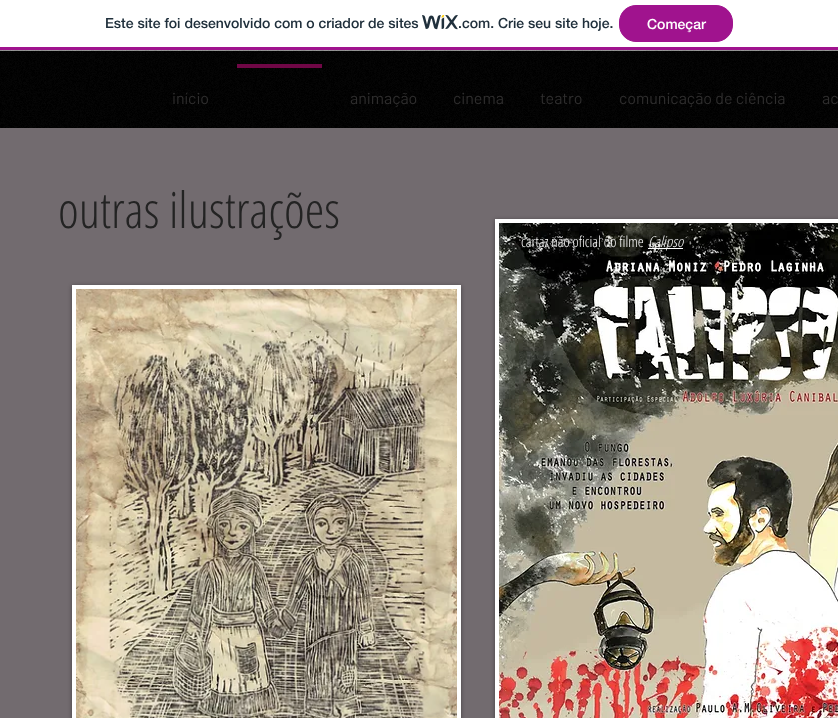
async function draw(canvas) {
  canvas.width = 838;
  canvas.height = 718;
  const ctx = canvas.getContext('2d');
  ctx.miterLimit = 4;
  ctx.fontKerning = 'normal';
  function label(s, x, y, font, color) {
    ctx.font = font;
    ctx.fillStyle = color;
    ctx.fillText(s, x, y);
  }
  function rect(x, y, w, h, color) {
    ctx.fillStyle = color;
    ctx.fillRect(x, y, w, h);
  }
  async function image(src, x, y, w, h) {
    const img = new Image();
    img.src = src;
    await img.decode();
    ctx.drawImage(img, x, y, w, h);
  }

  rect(0, 0, 838, 718, '#000');
  rect(0, 0, 838, 47, '#fff');
  rect(0, 47, 838, 3, '#a0138e');
  label('Este site foi desenvolvido com o criador de sites', 105, 28, '500 14px "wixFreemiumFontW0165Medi"', '#20303c');
  await image('assets/img1.png', 422, 15, 36, 15);
  label('.com. Crie seu site hoje.', 458, 28, '500 14px "wixFreemiumFontW0165Medi"', '#20303c');
  ctx.fillStyle = '#a0138e';
  ctx.beginPath();
  ctx.roundRect(619.5, 5.5, 113, 36, 16.5);
  ctx.fill();
  ctx.strokeStyle = '#a0138e';
  ctx.stroke();
  label('Começar', 647, 29, '500 14px "wixFreemiumFontW0165Medi"', '#fff');
  rect(0, 50, 838, 1, '#979797');
  await image('assets/img2.png', 0, 50, 838, 78);
  rect(237, 64, 85, 4, '#700746');
  label('início', 172, 104, '16px Barlow', '#2f2e2e');
  label('animação', 350, 104, '16px Barlow', '#2f2e2e');
  label('cinema', 453, 104, '16px Barlow', '#2f2e2e');
  label('teatro', 540, 104, '16px Barlow', '#2f2e2e');
  label('comunicação de ciência', 619, 104, '16px Barlow', '#2f2e2e');
  label('ac', 822, 104, '16px Barlow', '#2f2e2e');
  rect(0, 128, 838, 590, '#726b6f');
  label('outras ilustrações', 58, 228, '300 50px Open Sans Condensed', '#232323');
  ctx.fillStyle = '#00000066';
  ctx.filter = 'blur(2px)';
  ctx.beginPath();
  ctx.rect(495, 220, 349, 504);
  ctx.fill();
  ctx.filter = 'none';
  rect(495, 219, 343, 499, '#fff');
  await image('assets/img3.png', 499, 223, 339, 495);
  label('cartaz não oficial do filme', 521, 247, '300 15px Open Sans Condensed', '#fff');
  rect(648, 248, 35, 1, '#fff');
  label('Calipso', 648, 247, 'italic 300 15px Open Sans Condensed', '#fff');
  ctx.fillStyle = '#00000066';
  ctx.filter = 'blur(2px)';
  ctx.beginPath();
  ctx.rect(72, 286, 389, 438);
  ctx.fill();
  ctx.filter = 'none';
  rect(72, 285, 389, 433, '#fff');
  await image('assets/img4.png', 76, 289, 381, 429);
}

draw(document.querySelector('canvas'));
